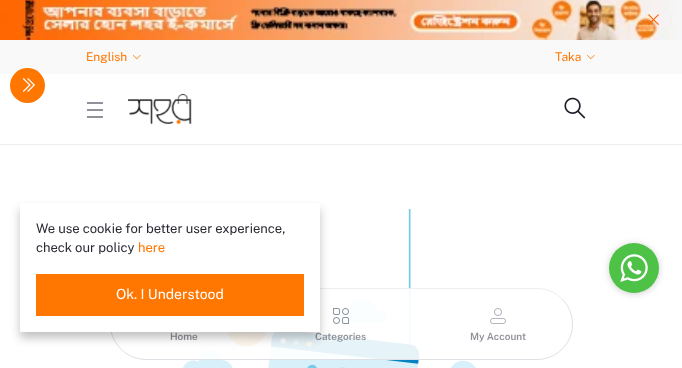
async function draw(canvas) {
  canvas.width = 682;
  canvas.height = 368;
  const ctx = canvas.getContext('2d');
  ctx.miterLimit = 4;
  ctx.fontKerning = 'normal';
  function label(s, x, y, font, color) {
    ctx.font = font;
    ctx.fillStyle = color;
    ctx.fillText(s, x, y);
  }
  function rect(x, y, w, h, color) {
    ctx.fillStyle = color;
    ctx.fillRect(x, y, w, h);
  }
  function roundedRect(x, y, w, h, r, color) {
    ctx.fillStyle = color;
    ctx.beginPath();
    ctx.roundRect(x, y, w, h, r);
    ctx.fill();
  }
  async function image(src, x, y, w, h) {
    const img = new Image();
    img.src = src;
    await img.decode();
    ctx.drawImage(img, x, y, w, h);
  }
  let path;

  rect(0, 0, 682, 368, '#fff');
  rect(0, 40, 682, 34, '#faf9f9');
  ctx.fillStyle = '#ff7600';
  ctx.beginPath();
  ctx.arc(27.5, 85.5, 17.5, 0, 2 * Math.PI);
  ctx.fill();
  await image('assets/img1.png', 22, 78, 13, 14);
  await image('assets/img2.png', 0, 0, 682, 40);
  await image('assets/img3.png', 648, 14, 11, 11);
  label('English', 86, 61, '12px Public Sans', '#ff7600');
  await image('assets/img4.png', 132, 54, 9, 6);
  label('Taka', 555, 61, '12px Public Sans', '#ff7600');
  await image('assets/img4.png', 586, 54, 9, 6);
  rect(0, 144, 682, 1, '#ededf2');
  rect(87, 102, 16, 2, '#919199');
  rect(87, 109, 16, 2, '#919199');
  rect(87, 116, 16, 2, '#919199');
  await image('assets/img5.png', 128, 94, 64, 30);
  await image('assets/img6.png', 564, 97, 22, 22);
  await image('assets/img7.png', 183, 209, 293, 159);
  roundedRect(110, 288, 463, 72, 36, '#ffffffe6');
  path = new Path2D('M121 299C127.5 292 136.5 288.5 146 288.5H537C546.5 288.5 555.5 292 562 299');
  ctx.strokeStyle = '#ededf2';
  ctx.stroke(path);
  path = new Path2D('M562 299C570.5 307 574 319.5 572 331C568.5 347.5 553.5 359.5 537 359.5H146C129.5 359.5 114.5 347.5 111 331C109 319.5 112.5 307 121 299');
  ctx.strokeStyle = '#dfdfe6';
  ctx.stroke(path);
  label('Home', 170, 340, '600 10px Public Sans', '#919199');
  await image('assets/img8.png', 333, 308, 16, 16);
  label('Categories', 315, 340, '600 10px Public Sans', '#919199');
  await image('assets/img9.png', 490, 308, 16, 16);
  label('My Account', 470, 340, '600 10px Public Sans', '#919199');
  ctx.fillStyle = '#0000003d';
  ctx.filter = 'blur(5px)';
  ctx.beginPath();
  ctx.rect(20, 209, 300, 129);
  ctx.fill();
  ctx.filter = 'none';
  rect(20, 203, 300, 129, '#fff');
  label('We use cookie for better user experience,', 36, 233, '13px Public Sans', '#292933');
  label('check our policy', 36, 252, '13px Public Sans', '#292933');
  label('here', 138, 252, '13px Public Sans', '#ff7600');
  rect(36, 274, 268, 42, '#ff7600');
  label('Ok. I Understood', 116, 299, '14px Public Sans', '#fff');
  ctx.fillStyle = '#88888866';
  ctx.filter = 'blur(3.5px)';
  ctx.beginPath();
  ctx.roundRect(609, 244, 50, 50, 25);
  ctx.fill();
  ctx.filter = 'none';
  ctx.fillStyle = '#4dc247';
  ctx.beginPath();
  ctx.arc(634, 268, 25, 0, 2 * Math.PI);
  ctx.fill();
  await image('assets/img10.png', 620, 254, 28, 28);
}

draw(document.querySelector('canvas'));
